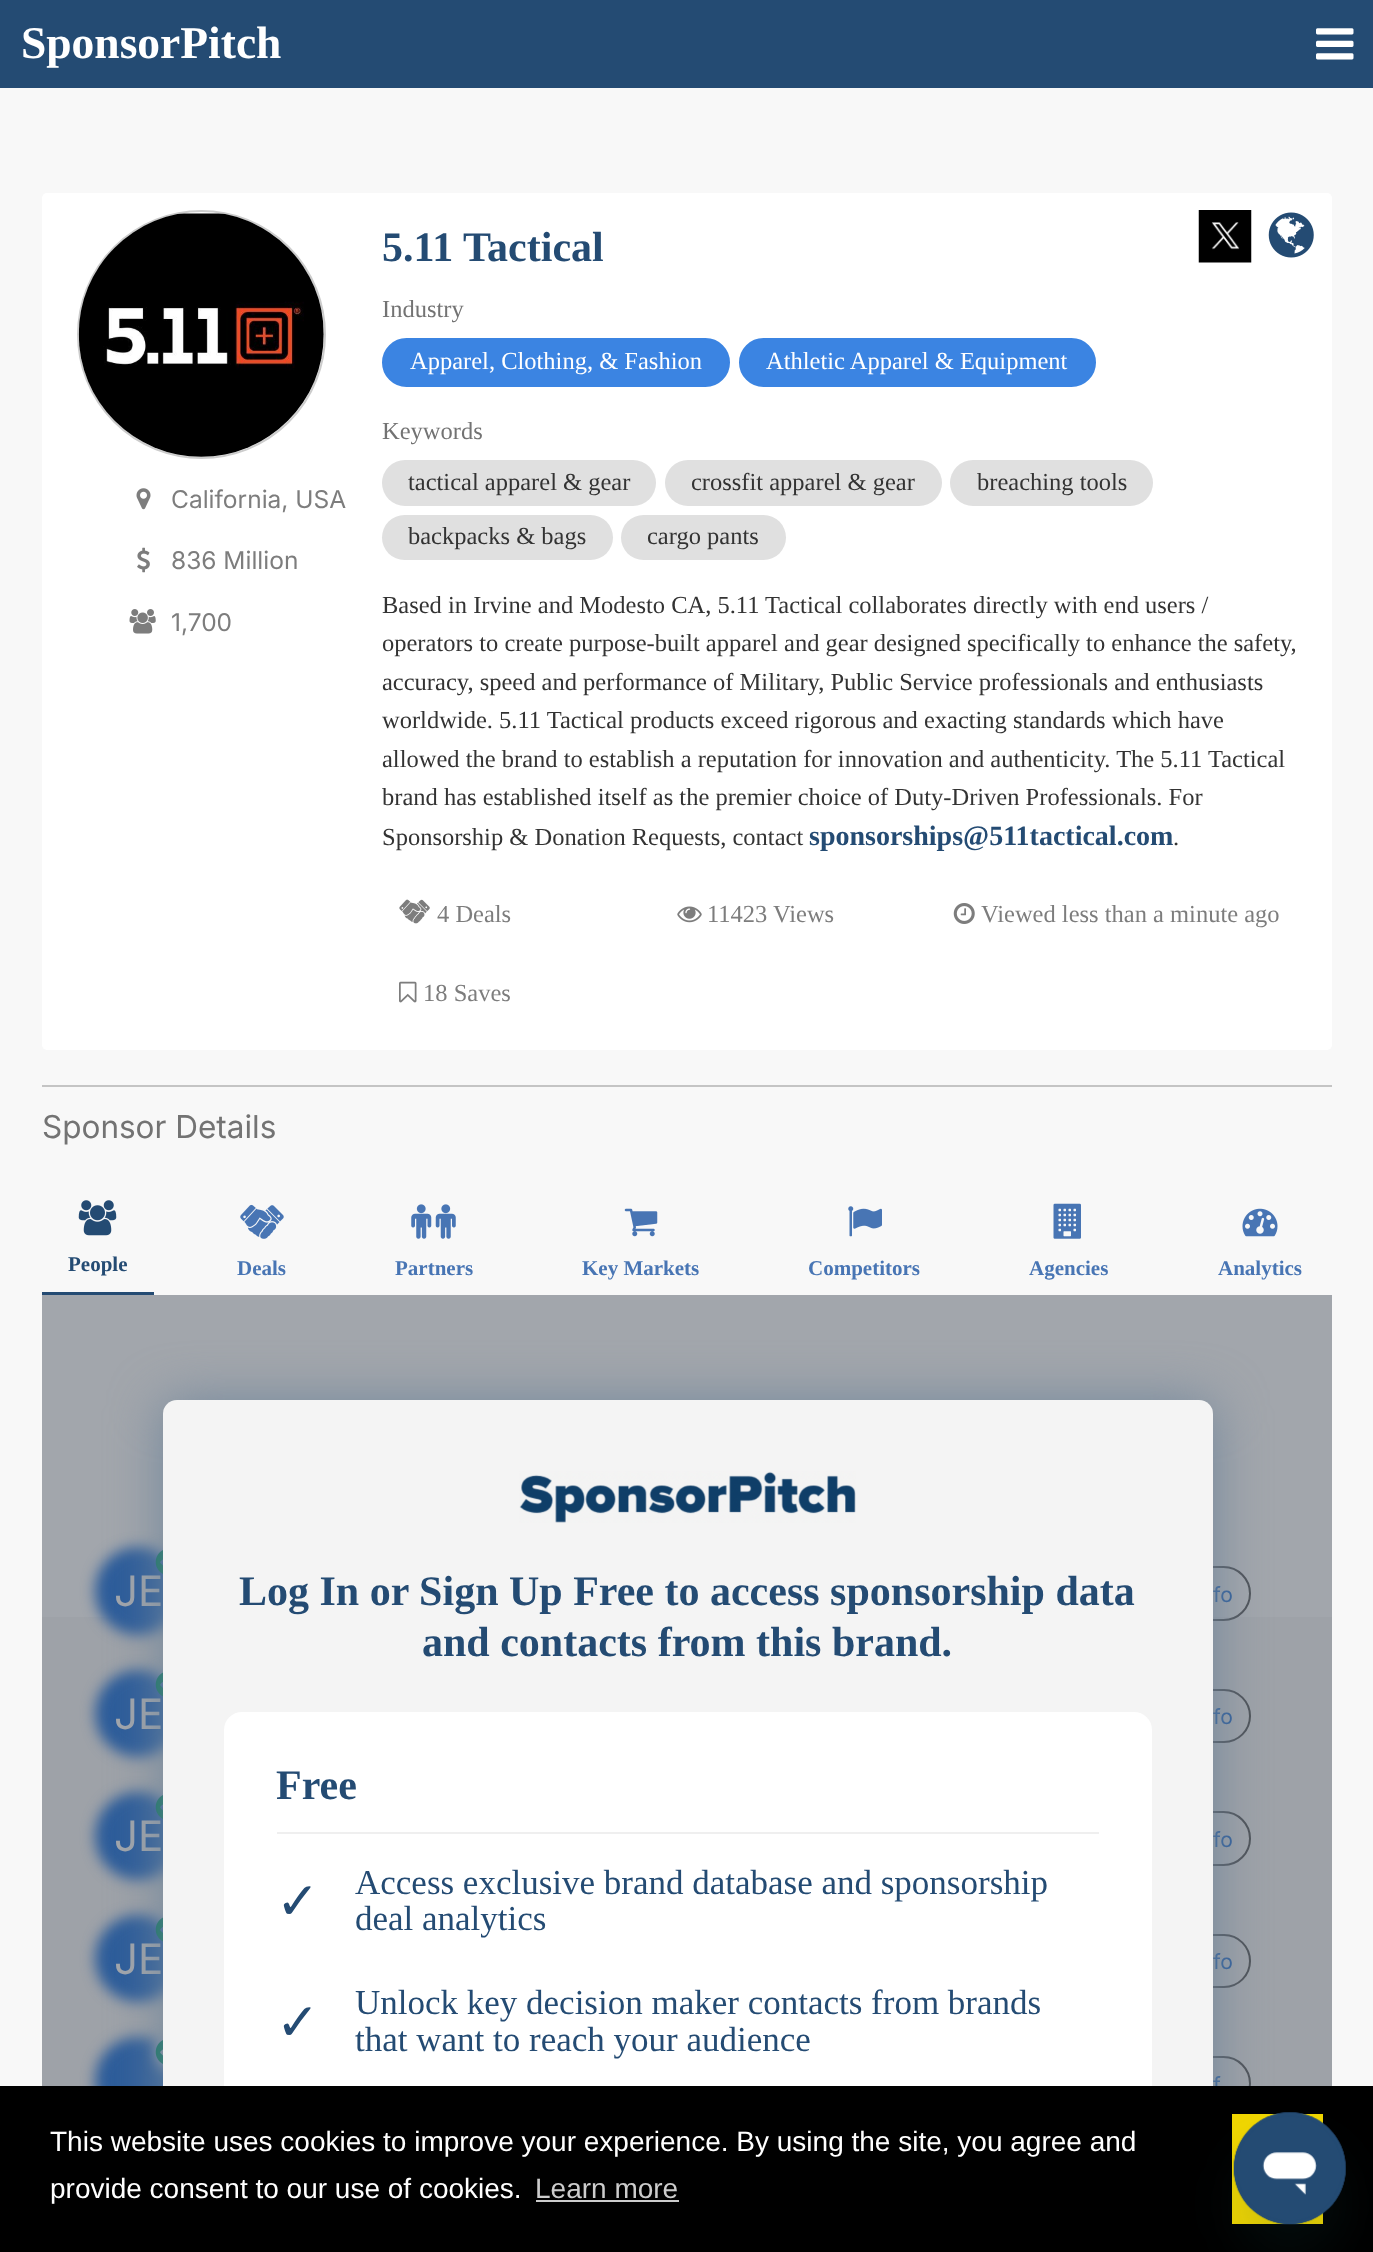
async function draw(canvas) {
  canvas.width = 1373;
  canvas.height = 2252;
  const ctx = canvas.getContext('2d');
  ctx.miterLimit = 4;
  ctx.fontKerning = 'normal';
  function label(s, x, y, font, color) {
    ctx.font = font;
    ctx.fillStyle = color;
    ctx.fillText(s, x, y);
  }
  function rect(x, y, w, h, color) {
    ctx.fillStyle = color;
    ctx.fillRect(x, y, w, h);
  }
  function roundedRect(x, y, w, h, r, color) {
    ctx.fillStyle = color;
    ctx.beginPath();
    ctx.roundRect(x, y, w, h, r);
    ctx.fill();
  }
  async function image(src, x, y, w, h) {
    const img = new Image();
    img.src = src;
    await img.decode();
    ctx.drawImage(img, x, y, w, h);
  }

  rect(0, 0, 1373, 2252, '#244b73');
  label('SponsorPitch', 21, 58, 'bold 45.5px Liberation Serif', '#fff');
  await image('assets/img1.png', 1316, 28, 38, 32);
  rect(0, 88, 1373, 1998, '#f8f8f8');
  rect(42, 1617, 1290, 469, '#9ea2a8');
  roundedRect(42, 193, 1290, 857, 5, '#fff');
  await image('assets/img2.png', 1198, 210, 54, 53);
  await image('assets/img3.png', 1268, 212, 46, 46);
  ctx.beginPath();
  ctx.arc(201.5, 334.5, 123.5, 0, 2 * Math.PI);
  ctx.strokeStyle = '#ccc';
  ctx.lineWidth = 2;
  ctx.stroke();
  await image('assets/img4.png', 78, 213, 246, 244);
  await image('assets/img5.png', 136, 488, 15, 22);
  label('California, USA', 171, 508, '24.5px Inter', '#7d7d7d');
  await image('assets/img6.png', 137, 547, 13, 26);
  label('836 Million', 171, 569, '24.5px Inter', '#7d7d7d');
  await image('assets/img7.png', 129, 609, 27, 25);
  label('1,700', 171, 631, '24.5px Inter', '#7d7d7d');
  label('5.11 Tactical', 382, 261, 'bold 42px Liberation Serif', '#244b73');
  label('Industry', 382, 317, '24.5px Liberation Serif', '#737373');
  ctx.fillStyle = '#3b84e2';
  ctx.beginPath();
  ctx.roundRect(383, 339, 346, 47, 23.5);
  ctx.fill();
  ctx.strokeStyle = '#3b84e2';
  ctx.stroke();
  label('Apparel, Clothing, & Fashion', 410, 369, '24.5px Liberation Serif', '#fff');
  ctx.fillStyle = '#3b84e2';
  ctx.beginPath();
  ctx.roundRect(740, 339, 355, 47, 23.5);
  ctx.fill();
  ctx.stroke();
  label('Athletic Apparel & Equipment', 766, 369, '24.5px Liberation Serif', '#fff');
  label('Keywords', 382, 439, '24.5px Liberation Serif', '#737373');
  roundedRect(382, 460, 274, 46, 23, '#e0e0e0');
  label('tactical apparel & gear', 408, 490, '24.5px Liberation Serif', '#333');
  roundedRect(665, 460, 277, 46, 23, '#e0e0e0');
  label('crossfit apparel & gear', 691, 490, '24.5px Liberation Serif', '#333');
  roundedRect(950, 460, 203, 46, 23, '#e0e0e0');
  label('breaching tools', 977, 490, '24.5px Liberation Serif', '#333');
  roundedRect(382, 515, 231, 45, 22.5, '#e0e0e0');
  label('backpacks & bags', 408, 544, '24.5px Liberation Serif', '#333');
  roundedRect(621, 515, 165, 45, 22.5, '#e0e0e0');
  label('cargo pants', 647, 544, '24.5px Liberation Serif', '#333');
  label('Based in Irvine and Modesto CA, 5.11 Tactical collaborates directly with end users /', 382, 613, '24.5px Liberation Serif', '#333');
  label('operators to create purpose-built apparel and gear designed specifically to enhance the safety,', 382, 651, '24.5px Liberation Serif', '#333');
  label('accuracy, speed and performance of Military, Public Service professionals and enthusiasts', 382, 690, '24.5px Liberation Serif', '#333');
  label('worldwide. 5.11 Tactical products exceed rigorous and exacting standards which have', 382, 728, '24.5px Liberation Serif', '#333');
  label('allowed the brand to establish a reputation for innovation and authenticity. The 5.11 Tactical', 382, 767, '24.5px Liberation Serif', '#333');
  label('brand has established itself as the premier choice of Duty-Driven Professionals. For', 382, 805, '24.5px Liberation Serif', '#333');
  label('Sponsorship & Donation Requests, contact', 382, 845, '24.5px Liberation Serif', '#333');
  label('sponsorships@511tactical.com', 809, 845, 'bold 28px Liberation Serif', '#244b73');
  label('.', 1173, 845, '24.5px Liberation Serif', '#333');
  await image('assets/img8.png', 399, 899, 31, 25);
  label('4 Deals', 437, 922, '24.5px Liberation Serif', '#7d7d7d');
  await image('assets/img9.png', 677, 906, 25, 17);
  label('11423 Views', 707, 922, '24.5px Liberation Serif', '#7d7d7d');
  await image('assets/img10.png', 953, 903, 22, 21);
  label('Viewed less than a minute ago', 981, 922, '24.5px Liberation Serif', '#7d7d7d');
  await image('assets/img11.png', 399, 981, 18, 22);
  label('18 Saves', 423, 1001, '24.5px Liberation Serif', '#7d7d7d');
  rect(42, 1085, 1290, 2, '#c4c4c4');
  label('Sponsor Details', 42, 1138, '31.5px Inter', '#737373');
  rect(42, 1292, 112, 3, '#244b73');
  await image('assets/img12.png', 78, 1200, 39, 36);
  label('People', 68, 1271, 'bold 21px Liberation Serif', '#244b73');
  await image('assets/img13.png', 240, 1204, 44, 35);
  label('Deals', 237, 1275, 'bold 21px Liberation Serif', '#4875b4');
  await image('assets/img14.png', 411, 1204, 21, 35);
  await image('assets/img15.png', 435, 1204, 21, 35);
  label('Partners', 395, 1275, 'bold 21px Liberation Serif', '#4875b4');
  await image('assets/img16.png', 624, 1208, 34, 29);
  label('Key Markets', 582, 1275, 'bold 21px Liberation Serif', '#4875b4');
  await image('assets/img17.png', 848, 1206, 34, 31);
  label('Competitors', 808, 1275, 'bold 21px Liberation Serif', '#4875b4');
  await image('assets/img18.png', 1053, 1203, 28, 36);
  label('Agencies', 1029, 1275, 'bold 21px Liberation Serif', '#4875b4');
  await image('assets/img19.png', 1242, 1208, 36, 29);
  label('Analytics', 1218, 1275, 'bold 21px Liberation Serif', '#4875b4');
  rect(42, 1295, 1290, 322, '#a2a6ac');
  ctx.filter = 'blur(7px)';
  ctx.beginPath();
  ctx.roundRect(156, 1547, 26, 32, 13);
  ctx.fill();
  ctx.filter = 'none';
  ctx.fillStyle = '#2c5c9a';
  ctx.filter = 'blur(7px)';
  ctx.beginPath();
  ctx.roundRect(95, 1547, 87, 88, 43.5);
  ctx.fill();
  ctx.filter = 'none';
  await image('assets/img20.png', 155, 1550, 8, 24);
  label('JE', 114, 1606, '42px Inter', '#a2a6ac');
  ctx.beginPath();
  ctx.roundRect(1018, 1567, 232, 53, 26.5);
  ctx.strokeStyle = '#4e5258';
  ctx.stroke();
  label('fo', 1213, 1602, '21px Inter', '#2c5c9a');
  ctx.fillStyle = '#a2a6ac';
  ctx.filter = 'blur(7px)';
  ctx.beginPath();
  ctx.roundRect(156, 1670, 26, 31, 13);
  ctx.fill();
  ctx.filter = 'none';
  ctx.fillStyle = '#2c5c9a';
  ctx.filter = 'blur(7px)';
  ctx.beginPath();
  ctx.roundRect(95, 1670, 87, 87, 43.5);
  ctx.fill();
  ctx.filter = 'none';
  await image('assets/img21.png', 155, 1672, 8, 25);
  label('JE', 114, 1729, '42px Inter', '#a2a6ac');
  ctx.beginPath();
  ctx.roundRect(1018, 1690, 232, 52, 26);
  ctx.stroke();
  label('fo', 1213, 1724, '21px Inter', '#2c5c9a');
  ctx.fillStyle = '#a2a6ac';
  ctx.filter = 'blur(7px)';
  ctx.beginPath();
  ctx.roundRect(156, 1792, 26, 32, 13);
  ctx.fill();
  ctx.filter = 'none';
  ctx.fillStyle = '#2c5c9a';
  ctx.filter = 'blur(7px)';
  ctx.beginPath();
  ctx.roundRect(95, 1792, 87, 88, 43.5);
  ctx.fill();
  ctx.filter = 'none';
  await image('assets/img22.png', 155, 1795, 8, 24);
  label('JE', 114, 1851, '42px Inter', '#a2a6ac');
  ctx.beginPath();
  ctx.roundRect(1018, 1812, 232, 53, 26.5);
  ctx.stroke();
  label('fo', 1213, 1847, '21px Inter', '#2c5c9a');
  ctx.fillStyle = '#a2a6ac';
  ctx.filter = 'blur(7px)';
  ctx.beginPath();
  ctx.roundRect(156, 1915, 26, 31, 13);
  ctx.fill();
  ctx.filter = 'none';
  ctx.fillStyle = '#2c5c9a';
  ctx.filter = 'blur(7px)';
  ctx.beginPath();
  ctx.roundRect(95, 1915, 87, 87, 43.5);
  ctx.fill();
  ctx.filter = 'none';
  await image('assets/img23.png', 155, 1917, 8, 25);
  label('JE', 114, 1974, '42px Inter', '#a2a6ac');
  ctx.beginPath();
  ctx.roundRect(1018, 1935, 232, 52, 26);
  ctx.stroke();
  label('fo', 1213, 1969, '21px Inter', '#2c5c9a');
  ctx.filter = 'blur(7px)';
  ctx.beginPath();
  ctx.roundRect(95, 2037, 87, 88, 43.5);
  ctx.fill();
  ctx.filter = 'none';
  ctx.fillStyle = '#a2a6ac';
  ctx.filter = 'blur(7px)';
  ctx.beginPath();
  ctx.roundRect(156, 2037, 26, 32, 13);
  ctx.fill();
  ctx.filter = 'none';
  await image('assets/img24.png', 155, 2040, 8, 24);
  ctx.beginPath();
  ctx.roundRect(1018, 2057, 232, 53, 26.5);
  ctx.stroke();
  label('f', 1213, 2092, '21px Inter', '#2c5c9a');
  ctx.fillStyle = '#71869b';
  ctx.filter = 'blur(26px)';
  ctx.beginPath();
  ctx.roundRect(163, 1402, 1050, 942, 14);
  ctx.fill();
  ctx.filter = 'none';
  roundedRect(163, 1400, 1050, 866, 14, '#f4f4f4');
  await image('assets/img25.png', 519, 1471, 337, 52);
  label('Log In or Sign Up Free to access sponsorship data', 239, 1605, 'bold 42px Liberation Serif', '#244b73');
  label('and contacts from this brand.', 422, 1656, 'bold 42px Liberation Serif', '#244b73');
  roundedRect(224, 1712, 928, 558, 18, '#fff');
  label('Free', 276, 1799, 'bold 42px Liberation Serif', '#244b73');
  rect(277, 1832, 822, 2, '#efefef');
  label('✓', 276, 1919, '52px DejaVu Sans', '#244b73');
  label('Access exclusive brand database and sponsorship', 355, 1894, '35px Liberation Serif', '#244b73');
  label('deal analytics', 355, 1930, '35px Liberation Serif', '#244b73');
  label('✓', 276, 2040, '52px DejaVu Sans', '#244b73');
  label('Unlock key decision maker contacts from brands', 355, 2014, '35px Liberation Serif', '#244b73');
  label('that want to reach your audience', 355, 2051, '35px Liberation Serif', '#244b73');
  rect(0, 2086, 1373, 166, '#000');
  label('This website uses cookies to improve your experience. By using the site, you agree and', 50, 2151, '28px Liberation Sans', '#fff');
  label('provide consent to our use of cookies.', 50, 2198, '28px Liberation Sans', '#fff');
  label('Learn more', 535, 2198, '28px Liberation Sans', '#ccc');
  rect(536, 2200, 143, 2, '#ccc');
  rect(1232, 2114, 91, 110, '#f1d600');
  ctx.fillStyle = '#17494d26';
  ctx.filter = 'blur(26px)';
  ctx.beginPath();
  ctx.roundRect(1234, 2147, 112, 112, 56);
  ctx.fill();
  ctx.filter = 'none';
  await image('assets/img26.png', 1233, 2112, 113, 113);
}

draw(document.querySelector('canvas'));
